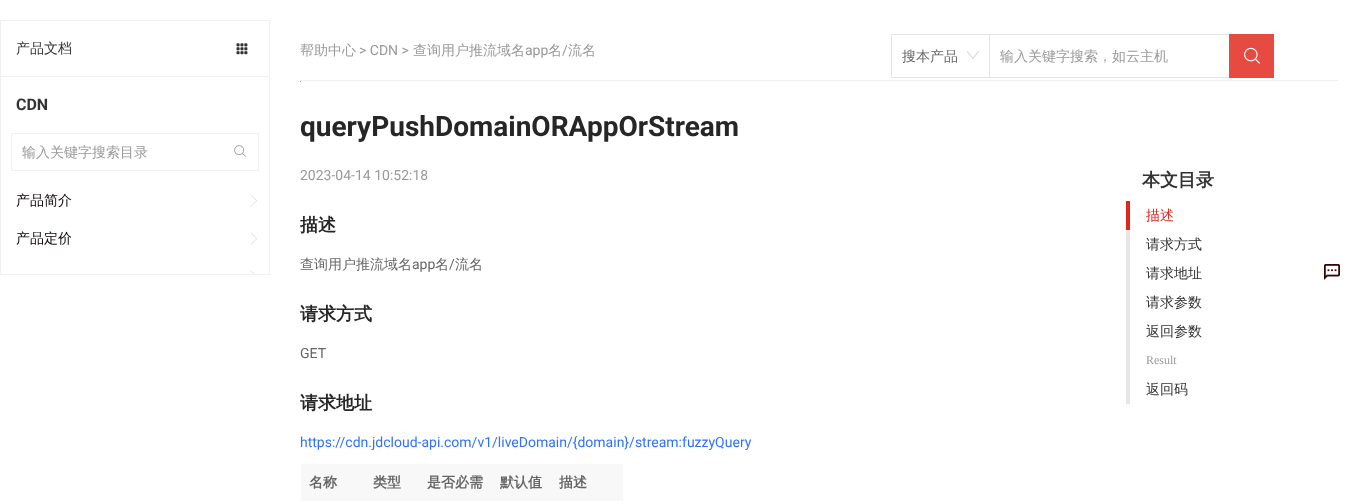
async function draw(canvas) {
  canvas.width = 1362;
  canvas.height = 501;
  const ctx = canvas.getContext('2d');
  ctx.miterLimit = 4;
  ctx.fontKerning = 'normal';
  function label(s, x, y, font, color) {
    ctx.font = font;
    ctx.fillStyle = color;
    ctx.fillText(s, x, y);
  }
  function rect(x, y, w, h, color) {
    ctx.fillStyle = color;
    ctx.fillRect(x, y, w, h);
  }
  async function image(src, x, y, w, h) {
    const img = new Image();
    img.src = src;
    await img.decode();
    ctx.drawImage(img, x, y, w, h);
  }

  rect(0, 0, 1362, 501, '#fff');
  ctx.strokeStyle = '#f0f0f0';
  ctx.strokeRect(0.5, 20.5, 269, 254);
  rect(1, 76, 268, 1, '#f0f0f0');
  label('产品文档', 16, 53, '500 14px WenQuanYi Zen Hei', '#333');
  await image('assets/img1.png', 236, 43, 12, 12);
  label('CDN', 16, 110, 'bold 16px Roboto', '#333');
  ctx.strokeRect(11.5, 133.5, 247, 37);
  label('输入关键字搜索目录', 22, 157, '500 14px WenQuanYi Zen Hei', '#999');
  await image('assets/img2.png', 234, 145, 12, 12);
  label('产品简介', 16, 205, '500 14px WenQuanYi Zen Hei', '#0d0509');
  await image('assets/img3.png', 250, 194, 7, 13);
  label('产品定价', 16, 243, '500 14px WenQuanYi Zen Hei', '#0d0509');
  await image('assets/img3.png', 250, 232, 7, 13);
  await image('assets/img4.png', 250, 270, 4, 4);
  rect(300, 80, 1038, 1, '#efefef');
  label('帮助中心', 300, 55, '500 14px WenQuanYi Zen Hei', '#999');
  label('> CDN >', 359, 55, '14px Roboto', '#999');
  label('查询用户推流域名', 413, 55, '500 14px WenQuanYi Zen Hei', '#999');
  label('app', 525, 55, '14px Roboto', '#999');
  label('名', 548, 55, '500 14px WenQuanYi Zen Hei', '#999');
  label('/', 562, 55, '14px Roboto', '#999');
  label('流名', 568, 55, '500 14px WenQuanYi Zen Hei', '#999');
  rect(891, 34, 98, 1, '#e5e5e5');
  rect(891, 77, 98, 1, '#e5e5e5');
  rect(891, 34, 1, 44, '#e5e5e5');
  label('搜本产品', 902, 61, '500 14px WenQuanYi Zen Hei', '#666');
  await image('assets/img5.png', 967, 51, 12, 8);
  ctx.strokeStyle = '#e5e5e5';
  ctx.strokeRect(989.5, 34.5, 284, 43);
  label('输入关键字搜索，如云主机', 1000, 61, '500 14px WenQuanYi Zen Hei', '#999');
  rect(1229, 34, 45, 44, '#e64a41');
  await image('assets/img6.png', 1244, 47, 16, 17);
  ctx.fillStyle = '#767676';
  ctx.beginPath();
  ctx.arc(300.5, 81.5, 0.5, 0, 2 * Math.PI);
  ctx.fill();
  label('queryPushDomainORAppOrStream', 300, 136, 'bold 28px Roboto', '#262626');
  label('2023-04-14 10:52:18', 300, 180, '14px Roboto', '#999');
  label('描述', 300, 231, 'bold 18px WenQuanYi Zen Hei', '#262626');
  label('查询用户推流域名', 300, 269, '500 14px WenQuanYi Zen Hei', '#666');
  label('app', 412, 269, '14px Roboto', '#666');
  label('名', 435, 269, '500 14px WenQuanYi Zen Hei', '#666');
  label('/', 449, 269, '14px Roboto', '#666');
  label('流名', 455, 269, '500 14px WenQuanYi Zen Hei', '#666');
  label('请求方式', 300, 320, 'bold 18px WenQuanYi Zen Hei', '#262626');
  label('GET', 300, 358, '14px Roboto', '#666');
  label('请求地址', 300, 409, 'bold 18px WenQuanYi Zen Hei', '#262626');
  label('https://cdn.jdcloud-api.com/v1/liveDomain/{domain}/stream:fuzzyQuery', 300, 447, '14px Roboto', '#3171ff');
  rect(301, 464, 322, 37, '#f8f8f8');
  label('名称', 309, 487, 'bold 14px WenQuanYi Zen Hei', '#666');
  label('类型', 373, 487, 'bold 14px WenQuanYi Zen Hei', '#666');
  label('是否必需', 427, 487, 'bold 14px WenQuanYi Zen Hei', '#666');
  label('默认值', 500, 487, 'bold 14px WenQuanYi Zen Hei', '#666');
  label('描述', 559, 487, 'bold 14px WenQuanYi Zen Hei', '#666');
  label('本文目录', 1142, 186, 'bold 18px WenQuanYi Zen Hei', '#333');
  rect(1126, 230, 4, 174, '#e6e6e6');
  rect(1126, 201, 4, 29, '#e1251b');
  label('描述', 1146, 220, '500 14px WenQuanYi Zen Hei', '#e1251b');
  label('请求方式', 1146, 249, '500 14px WenQuanYi Zen Hei', '#333');
  label('请求地址', 1146, 278, '500 14px WenQuanYi Zen Hei', '#333');
  label('请求参数', 1146, 307, '500 14px WenQuanYi Zen Hei', '#333');
  label('返回参数', 1146, 336, '500 14px WenQuanYi Zen Hei', '#333');
  label('Result', 1146, 364, '12px Liberation Serif', '#999');
  label('返回码', 1146, 394, '500 14px WenQuanYi Zen Hei', '#333');
  await image('assets/img7.png', 1324, 264, 16, 16);
}

draw(document.querySelector('canvas'));
